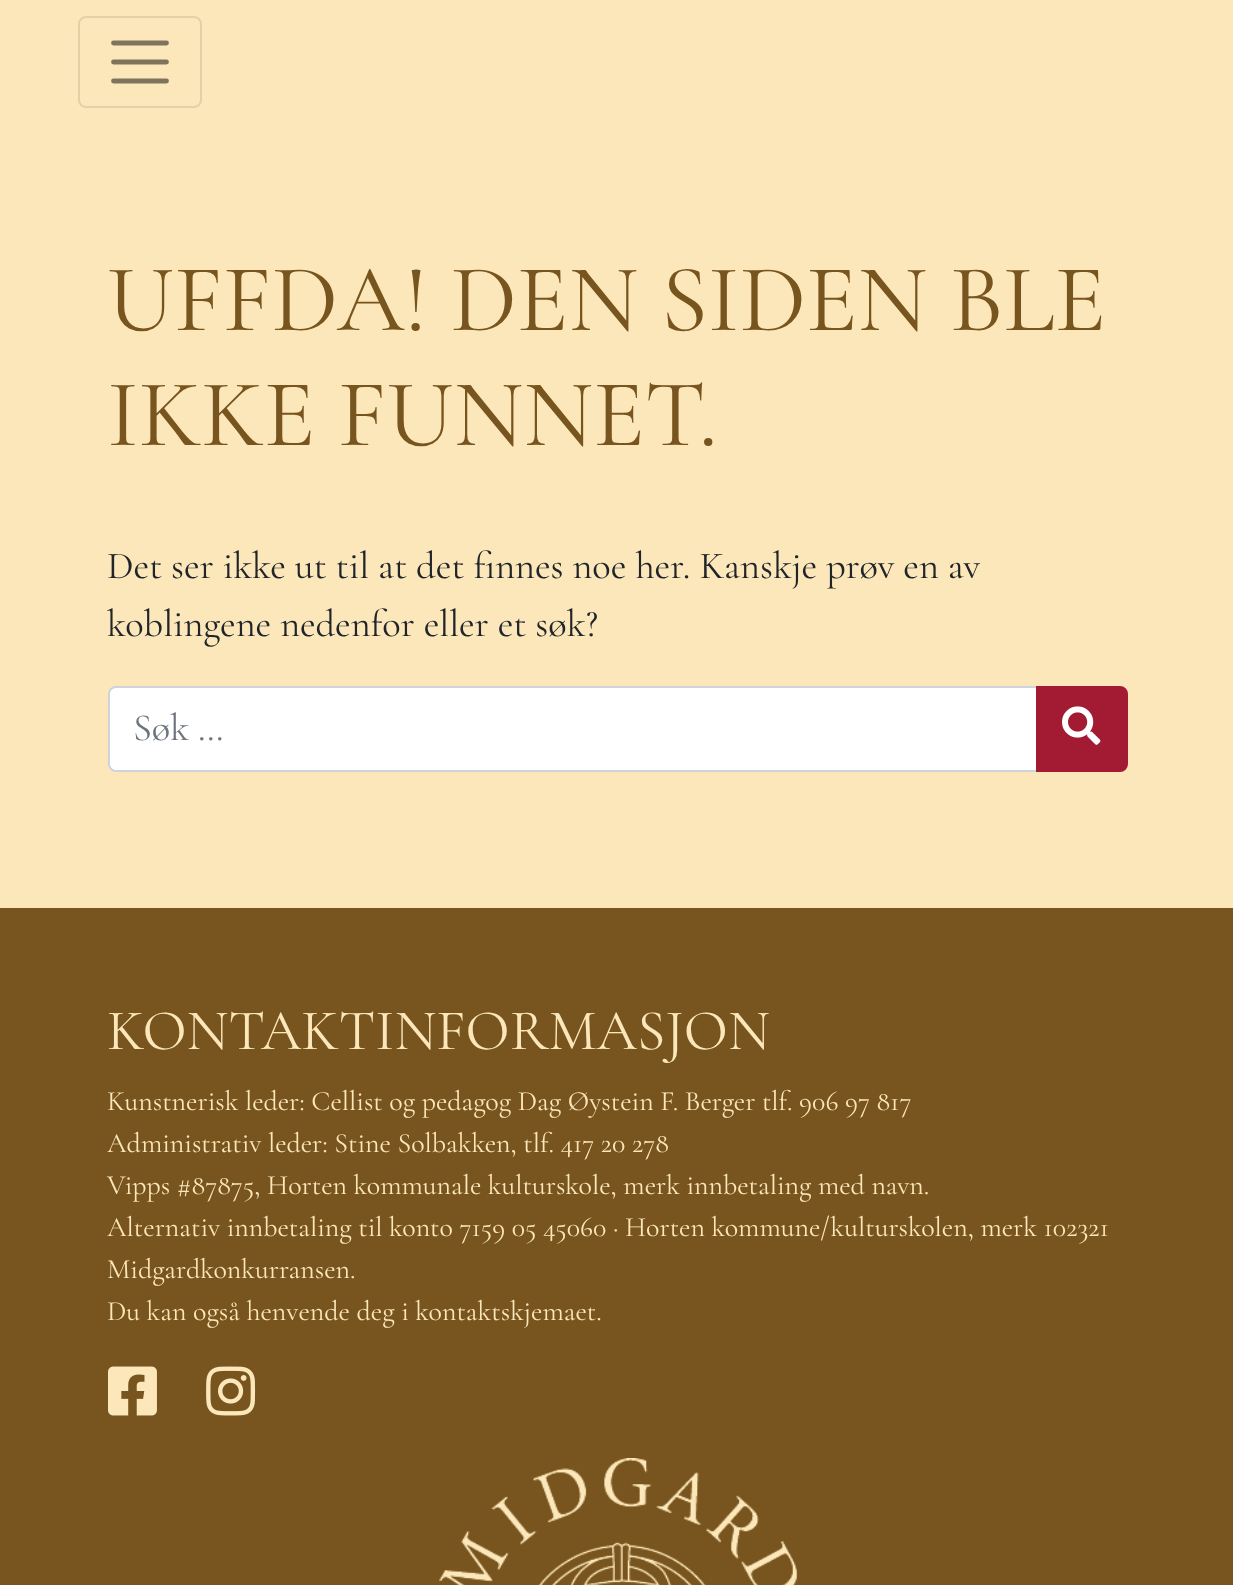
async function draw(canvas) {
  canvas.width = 1233;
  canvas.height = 1585;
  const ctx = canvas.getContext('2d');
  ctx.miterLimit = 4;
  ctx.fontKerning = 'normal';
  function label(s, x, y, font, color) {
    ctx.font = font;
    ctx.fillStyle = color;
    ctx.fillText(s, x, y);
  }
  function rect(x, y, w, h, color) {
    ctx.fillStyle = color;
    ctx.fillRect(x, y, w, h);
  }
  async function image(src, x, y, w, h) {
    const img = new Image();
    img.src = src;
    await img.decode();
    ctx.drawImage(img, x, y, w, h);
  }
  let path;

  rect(0, 0, 1233, 1585, '#fce7ba');
  ctx.beginPath();
  ctx.roundRect(79, 17, 122, 90, 7);
  ctx.strokeStyle = '#e3d0a7';
  ctx.lineWidth = 2;
  ctx.stroke();
  path = new Path2D('M113.5 43H166.5M113.5 62H166.5M113.5 81H166.5');
  ctx.strokeStyle = '#7e745d';
  ctx.lineWidth = 4.8;
  ctx.lineCap = 'round';
  ctx.stroke(path);
  label('UFFDA! DEN SIDEN BLE', 107, 330, '300 96px Cormorant Garamond', '#78551e');
  label('IKKE FUNNET.', 107, 445, '300 96px Cormorant Garamond', '#78551e');
  label('Det ser ikke ut til at det finnes noe her. Kanskje prøv en av', 107, 578, '300 38.4px Cormorant Garamond', '#212529');
  label('koblingene nedenfor eller et søk?', 107, 636, '300 38.4px Cormorant Garamond', '#212529');
  ctx.fillStyle = '#fff';
  ctx.beginPath();
  ctx.roundRect(109, 687, 928, 84, [7, 0, 0, 7]);
  ctx.fill();
  ctx.strokeStyle = '#ced4da';
  ctx.lineWidth = 2;
  ctx.stroke();
  label('Søk …', 133, 740, '300 38.4px Cormorant Garamond', '#6c757d');
  ctx.fillStyle = '#a21b32';
  ctx.beginPath();
  ctx.roundRect(1037, 687, 90, 84, [0, 7, 7, 0]);
  ctx.fill();
  ctx.strokeStyle = '#a21b32';
  ctx.stroke();
  await image('assets/img1.png', 1062, 706, 39, 39);
  rect(0, 908, 1233, 677, '#78551e');
  label('KONTAKTINFORMASJON', 107, 1049, '300 57.6px Cormorant Garamond', '#fce7ba');
  label('Kunstnerisk leder: Cellist og pedagog Dag Øystein F. Berger tlf. 906 97 817', 107, 1110, '300 27.95px Cormorant Garamond', '#fce7ba');
  label('Administrativ leder: Stine Solbakken, tlf. 417 20 278', 107, 1152, '300 27.95px Cormorant Garamond', '#fce7ba');
  label('Vipps #87875, Horten kommunale kulturskole, merk innbetaling med navn.', 107, 1194, '300 27.95px Cormorant Garamond', '#fce7ba');
  label('Alternativ innbetaling til konto 7159 05 45060 · Horten kommune/kulturskolen, merk 102321', 107, 1236, '300 27.95px Cormorant Garamond', '#fce7ba');
  label('Midgardkonkurransen.', 107, 1278, '300 27.95px Cormorant Garamond', '#fce7ba');
  label('Du kan også henvende deg i kontaktskjemaet.', 107, 1320, '300 27.95px Cormorant Garamond', '#fce7ba');
  await image('assets/img2.png', 108, 1366, 49, 50);
  await image('assets/img3.png', 206, 1366, 50, 50);
  await image('assets/img4.png', 439, 1458, 359, 127);
}

draw(document.querySelector('canvas'));
